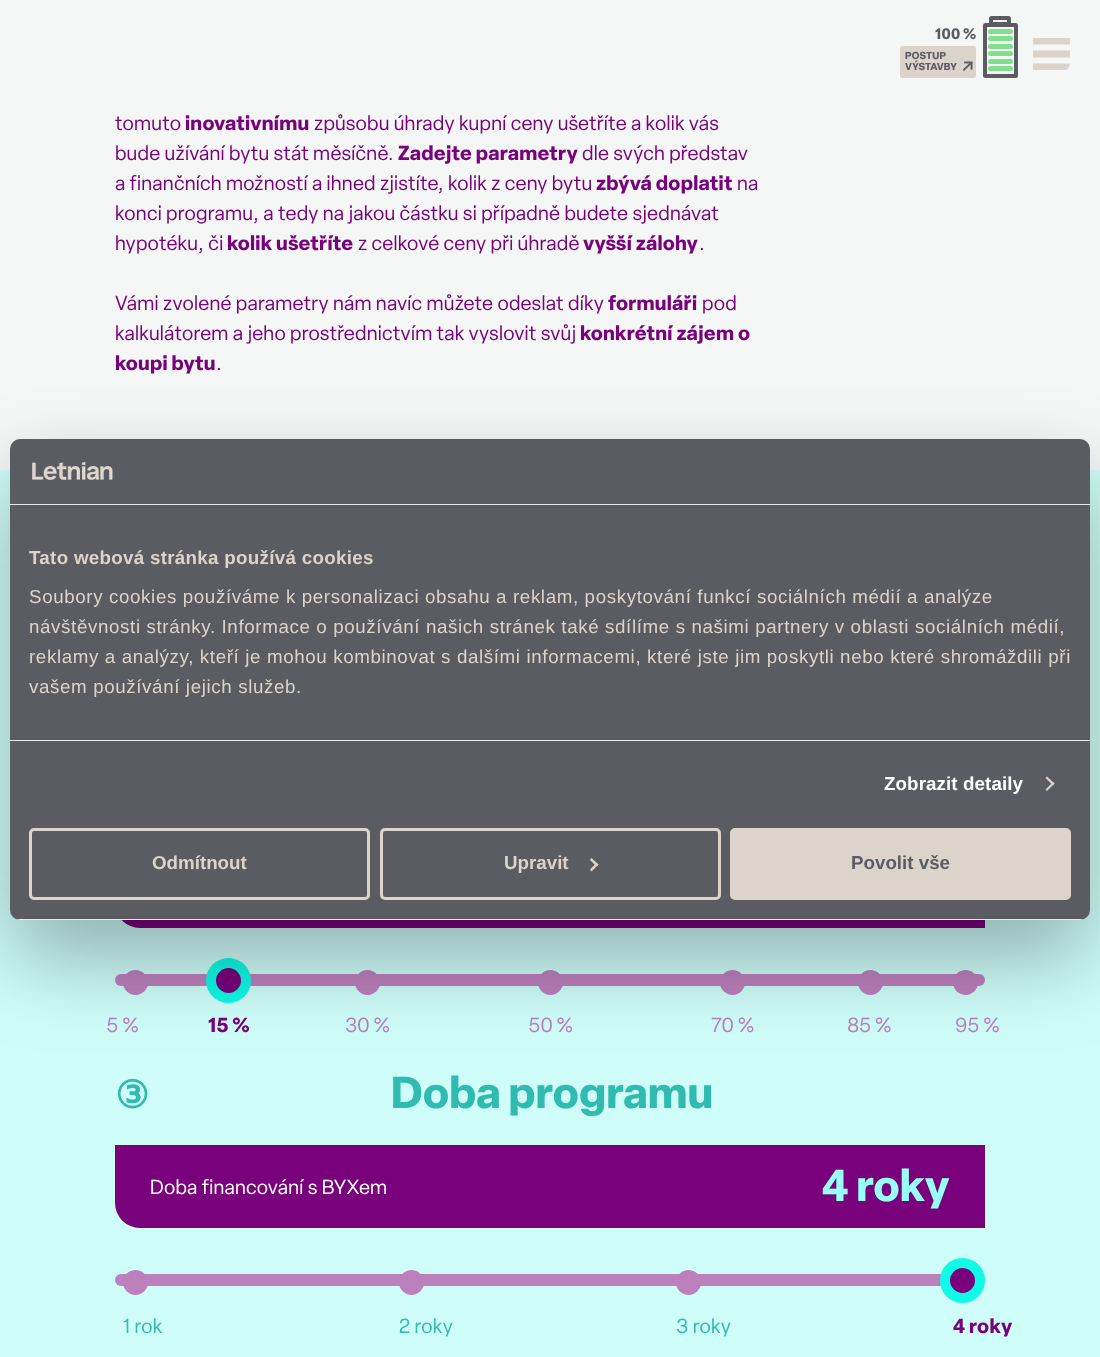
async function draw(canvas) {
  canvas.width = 1100;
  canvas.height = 1357;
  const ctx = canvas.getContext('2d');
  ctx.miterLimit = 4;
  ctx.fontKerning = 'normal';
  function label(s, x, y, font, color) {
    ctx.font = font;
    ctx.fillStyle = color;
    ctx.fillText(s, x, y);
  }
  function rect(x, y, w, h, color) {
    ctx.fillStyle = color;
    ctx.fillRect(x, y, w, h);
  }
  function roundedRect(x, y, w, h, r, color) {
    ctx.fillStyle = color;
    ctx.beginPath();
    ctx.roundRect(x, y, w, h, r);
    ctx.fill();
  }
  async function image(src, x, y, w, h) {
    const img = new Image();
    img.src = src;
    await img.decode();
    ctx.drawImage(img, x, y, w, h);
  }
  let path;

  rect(0, 0, 1100, 1357, '#f5f6f6');
  ctx.letterSpacing = '0.25px';
  label('100 %', 935, 39, 'bold 15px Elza', '#5b5c61');
  roundedRect(900, 46, 76, 32, 2.5, '#dcd3ca');
  label('POSTUP', 905, 59, 'bold 10px Elza', '#5b5c61');
  label('VÝSTAVBY', 905, 70, 'bold 10px Elza', '#5b5c61');
  await image('assets/img1.png', 963, 61, 10, 10);
  ctx.beginPath();
  ctx.roundRect(985, 25, 31, 51, 0.5);
  ctx.strokeStyle = '#5b5c61';
  ctx.lineWidth = 4;
  ctx.stroke();
  ctx.beginPath();
  ctx.roundRect(991, 18, 18, 6, 0.5);
  ctx.stroke();
  roundedRect(988, 29, 25, 5, 2.5, '#81df8b');
  roundedRect(988, 36, 25, 5, 2.5, '#81df8b');
  roundedRect(988, 44, 25, 5, 2.5, '#81df8b');
  roundedRect(988, 51, 25, 5, 2.5, '#81df8b');
  roundedRect(988, 59, 25, 5, 2.5, '#81df8b');
  roundedRect(988, 66, 25, 5, 2.5, '#81df8b');
  ctx.save();
  ctx.beginPath();
  ctx.rect(1033, 38, 37, 32);
  ctx.clip();
  ctx.fillStyle = '#dcd3ca';
  path = new Path2D('M1032.5 37.5V44.5H1070V37.5ZM1032.5 57.5H1070V50.5H1032.5ZM1032.5 70.5H1063C1067 70.5 1070 67 1070 63.5H1032.5Z');
  ctx.fill(path);
  ctx.restore();
  label('tomuto', 115, 130, '20px Elza', '#79027c');
  label('inovativnímu', 185, 130, 'bold 20px Elza', '#79027c');
  label('způsobu úhrady kupní ceny ušetříte a kolik vás', 314, 130, '20px Elza', '#79027c');
  label('bude užívání bytu stát měsíčně.', 115, 160, '20px Elza', '#79027c');
  label('Zadejte parametry', 398, 160, 'bold 20px Elza', '#79027c');
  label('dle svých představ', 582, 160, '20px Elza', '#79027c');
  label('a finančních možností a ihned zjistíte, kolik z ceny bytu', 115, 190, '20px Elza', '#79027c');
  label('zbývá doplatit', 596, 190, 'bold 20px Elza', '#79027c');
  label('na', 737, 190, '20px Elza', '#79027c');
  label('konci programu, a tedy na jakou částku si případně budete sjednávat', 115, 220, '20px Elza', '#79027c');
  label('hypotéku, či', 115, 250, '20px Elza', '#79027c');
  label('kolik ušetříte', 227, 250, 'bold 20px Elza', '#79027c');
  label('z celkové ceny při úhradě', 358, 250, '20px Elza', '#79027c');
  label('vyšší zálohy', 583, 250, 'bold 20px Elza', '#79027c');
  label('.', 699, 250, '20px Elza', '#79027c');
  label('Vámi zvolené parametry nám navíc můžete odeslat díky', 115, 310, '20px Elza', '#79027c');
  label('formuláři', 608, 310, 'bold 20px Elza', '#79027c');
  label('pod', 702, 310, '20px Elza', '#79027c');
  label('kalkulátorem a jeho prostřednictvím tak vyslovit svůj', 115, 340, '20px Elza', '#79027c');
  label('konkrétní zájem o', 580, 340, 'bold 20px Elza', '#79027c');
  label('koupi bytu', 115, 370, 'bold 20px Elza', '#79027c');
  label('.', 216, 370, '20px Elza', '#79027c');
  rect(0, 470, 1100, 887, '#cffefa');
  ctx.fillStyle = '#79027c';
  ctx.beginPath();
  ctx.roundRect(115, 844, 870, 84, [0, 0, 0, 25]);
  ctx.fill();
  ctx.fillStyle = '#bc80bd';
  ctx.beginPath();
  ctx.arc(135.5, 982.5, 12.5, 0, 2 * Math.PI);
  ctx.fill();
  ctx.beginPath();
  ctx.arc(367.5, 982.5, 12.5, 0, 2 * Math.PI);
  ctx.fill();
  ctx.beginPath();
  ctx.arc(550.5, 982.5, 12.5, 0, 2 * Math.PI);
  ctx.fill();
  ctx.beginPath();
  ctx.arc(732.5, 982.5, 12.5, 0, 2 * Math.PI);
  ctx.fill();
  ctx.beginPath();
  ctx.arc(870.5, 982.5, 12.5, 0, 2 * Math.PI);
  ctx.fill();
  ctx.beginPath();
  ctx.arc(965.5, 982.5, 12.5, 0, 2 * Math.PI);
  ctx.fill();
  roundedRect(115, 974, 870, 12, 6, '#bc80bd');
  ctx.fillStyle = '#79027c';
  ctx.beginPath();
  ctx.arc(228.5, 980.5, 17.5, 0, 2 * Math.PI);
  ctx.fill();
  ctx.strokeStyle = '#0ffae7';
  ctx.lineWidth = 10;
  ctx.stroke();
  label('5 %', 106, 1032, '20px Elza', '#bc80bd');
  label('15 %', 208, 1032, 'bold 20px Elza', '#79027c');
  label('30 %', 345, 1032, '20px Elza', '#bc80bd');
  label('50 %', 528, 1032, '20px Elza', '#bc80bd');
  label('70 %', 711, 1032, '20px Elza', '#bc80bd');
  label('85 %', 847, 1032, '20px Elza', '#bc80bd');
  label('95 %', 955, 1032, '20px Elza', '#bc80bd');
  ctx.letterSpacing = '0px';
  label('③', 115, 1108, 'bold 38px DejaVu Sans', '#2fbbaf');
  label('Doba programu', 391, 1108, 'bold 44px Elza', '#2fbbaf');
  ctx.fillStyle = '#79027c';
  ctx.beginPath();
  ctx.roundRect(115, 1145, 870, 83, [0, 0, 0, 25]);
  ctx.fill();
  ctx.letterSpacing = '0.25px';
  label('Doba financování s BYXem', 150, 1194, '20px Elza', '#fff');
  ctx.letterSpacing = '0px';
  label('4 roky', 822, 1201, 'bold 44px Elza', '#98fff6');
  ctx.fillStyle = '#bc80bd';
  ctx.beginPath();
  ctx.arc(135.5, 1282.5, 12.5, 0, 2 * Math.PI);
  ctx.fill();
  ctx.beginPath();
  ctx.arc(411.5, 1282.5, 12.5, 0, 2 * Math.PI);
  ctx.fill();
  ctx.beginPath();
  ctx.arc(688.5, 1282.5, 12.5, 0, 2 * Math.PI);
  ctx.fill();
  roundedRect(115, 1274, 870, 12, 6, '#bc80bd');
  ctx.fillStyle = '#79027c';
  ctx.beginPath();
  ctx.arc(962.5, 1280.5, 17.5, 0, 2 * Math.PI);
  ctx.fill();
  ctx.stroke();
  ctx.letterSpacing = '0.25px';
  label('1 rok', 123, 1333, '20px Elza', '#2fbbaf');
  label('2 roky', 399, 1333, '20px Elza', '#2fbbaf');
  label('3 roky', 676, 1333, '20px Elza', '#2fbbaf');
  label('4 roky', 953, 1333, 'bold 20px Elza', '#79027c');
  ctx.fillStyle = '#0000004d';
  ctx.filter = 'blur(42.5px)';
  ctx.beginPath();
  ctx.roundRect(10, 479, 1080, 481, 10);
  ctx.fill();
  ctx.filter = 'none';
  roundedRect(10, 439, 1080, 481, 10, '#5b5c61');
  rect(10, 504, 1080, 1, '#eaeaea');
  await image('assets/img2.png', 32, 462, 81, 18);
  rect(10, 740, 1080, 1, '#eaeaea');
  ctx.letterSpacing = '0.3px';
  label('Tato webová stránka používá cookies', 29, 564, 'bold 18.75px Liberation Sans', '#dcd3ca');
  ctx.letterSpacing = '0.62px';
  label('Soubory cookies používáme k personalizaci obsahu a reklam, poskytování funkcí sociálních médií a analýze', 29, 603, '18.75px Liberation Sans', '#dcd3ca');
  label('návštěvnosti stránky. Informace o používání našich stránek také sdílíme s našimi partnery v oblasti sociálních médií,', 29, 633, '18.75px Liberation Sans', '#dcd3ca');
  label('reklamy a analýzy, kteří je mohou kombinovat s dalšími informacemi, které jste jim poskytli nebo které shromáždili při', 29, 663, '18.75px Liberation Sans', '#dcd3ca');
  label('vašem používání jejich služeb.', 29, 693, '18.75px Liberation Sans', '#dcd3ca');
  ctx.letterSpacing = '0.1px';
  label('Zobrazit detaily', 884, 790, 'bold 18.75px Liberation Sans', '#fff');
  ctx.fillStyle = '#dcd3ca';
  path = new Path2D('M1047 776.5L1054.5 783.5L1053 785.5L1045.5 778Z');
  ctx.fill(path);
  path = new Path2D('M1053 782L1054.5 783.5L1047 791L1045.5 789.5Z');
  ctx.fill(path);
  ctx.save();
  ctx.beginPath();
  ctx.roundRect(10, 439, 1080, 481, 10);
  ctx.clip();
  rect(10, 919, 1080, 1, '#eaeaea');
  ctx.restore();
  ctx.beginPath();
  ctx.roundRect(30.5, 829.5, 338, 69, 3.5);
  ctx.strokeStyle = '#dcd3ca';
  ctx.lineWidth = 3;
  ctx.stroke();
  ctx.letterSpacing = '0px';
  label('Odmítnout', 152, 869, 'bold 18.75px Liberation Sans', '#dcd3ca');
  ctx.beginPath();
  ctx.roundRect(381.5, 829.5, 338, 69, 3.5);
  ctx.stroke();
  label('Upravit', 504, 869, 'bold 18.75px Liberation Sans', '#dcd3ca');
  path = new Path2D('M591.5 858L598.5 864.5L596.5 866.5L590 860Z');
  ctx.fill(path);
  path = new Path2D('M596.5 863L598.5 864.5L591.5 871.5L590 869.5Z');
  ctx.fill(path);
  ctx.beginPath();
  ctx.roundRect(731.5, 829.5, 338, 69, 3.5);
  ctx.fill();
  ctx.stroke();
  label('Povolit vše', 851, 869, 'bold 18.75px Liberation Sans', '#5b5c61');
}

draw(document.querySelector('canvas'));
